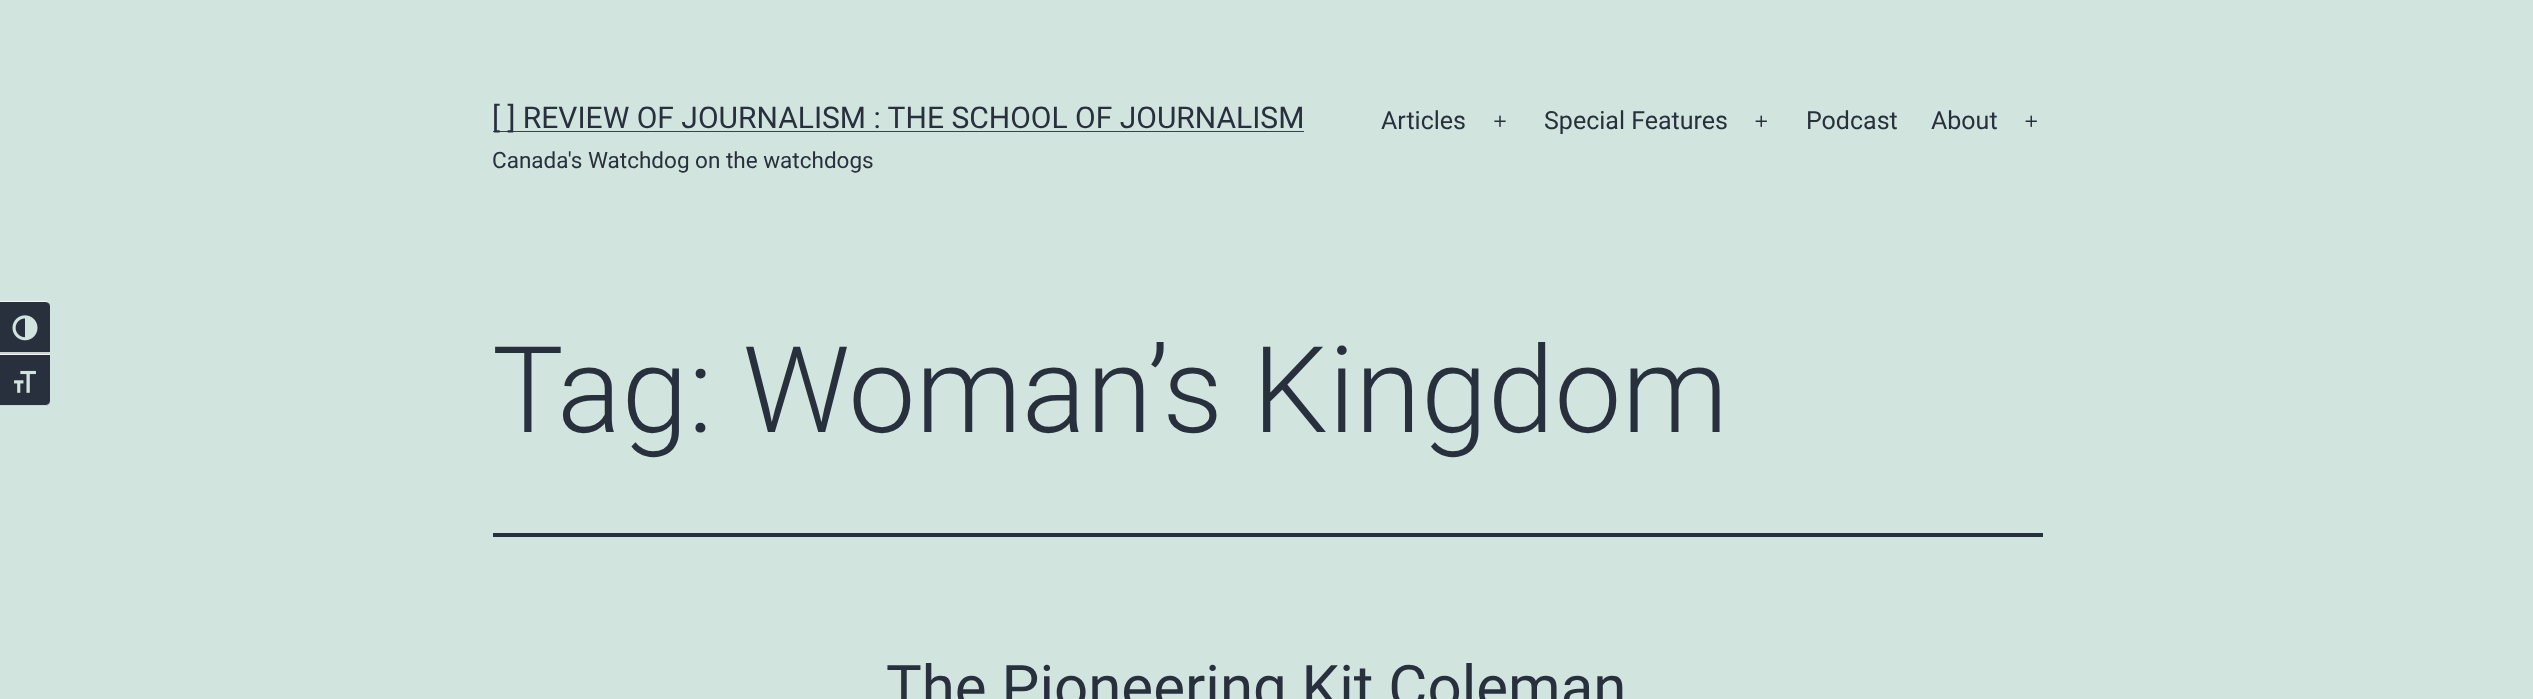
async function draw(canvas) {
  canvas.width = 2533;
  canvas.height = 699;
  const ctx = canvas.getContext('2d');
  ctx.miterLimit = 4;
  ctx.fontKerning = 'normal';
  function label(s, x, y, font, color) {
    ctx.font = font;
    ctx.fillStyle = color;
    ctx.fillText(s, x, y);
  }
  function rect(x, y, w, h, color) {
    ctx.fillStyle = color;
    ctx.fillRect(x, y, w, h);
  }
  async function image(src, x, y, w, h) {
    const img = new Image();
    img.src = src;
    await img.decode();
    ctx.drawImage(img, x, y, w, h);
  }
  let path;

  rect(0, 0, 2533, 699, '#d1e4dd');
  ctx.fillStyle = '#28303d';
  ctx.beginPath();
  ctx.roundRect(0, 301, 50, 53, [0, 5, 0, 0]);
  ctx.fill();
  ctx.fillStyle = '#f5f5f5';
  path = new Path2D('M0 302H45C48 302 50 304 50 306C50 304 49 302 47 301H0Z');
  ctx.fill(path);
  rect(0, 352, 50, 2, '#d2d2d2');
  await image('assets/img1.png', 12, 315, 26, 26);
  ctx.fillStyle = '#28303d';
  ctx.beginPath();
  ctx.roundRect(0, 354, 50, 52, [0, 0, 5, 0]);
  ctx.fill();
  rect(0, 354, 50, 1, '#f5f5f5');
  ctx.fillStyle = '#d2d2d2';
  path = new Path2D('M0 405V406H45C48 406 50 404 50 401C50 403 48 405 45 405Z');
  ctx.fill(path);
  await image('assets/img2.png', 14, 370, 22, 23);
  rect(493, 131, 811, 1, '#39414d');
  label('[ ] REVIEW OF JOURNALISM : THE SCHOOL OF JOURNALISM', 492, 128, '30px Roboto', '#28303d');
  label('Canada\'s Watchdog on the watchdogs', 492, 168, '22.5px Roboto', '#28303d');
  label('Articles', 1381, 129, '25px Roboto', '#28303d');
  await image('assets/img3.png', 1494, 115, 12, 12);
  label('Special Features', 1544, 129, '25px Roboto', '#28303d');
  await image('assets/img4.png', 1755, 115, 12, 12);
  label('Podcast', 1806, 129, '25px Roboto', '#28303d');
  label('About', 1931, 129, '25px Roboto', '#28303d');
  await image('assets/img4.png', 2025, 115, 12, 12);
  rect(493, 533, 1550, 4, '#28303d');
  label('Tag: Woman’s Kingdom', 492, 432, '300 120px Roboto', '#28303d');
  label('The Pioneering Kit Coleman', 886, 708, '60px Roboto', '#28303d');
}

draw(document.querySelector('canvas'));
